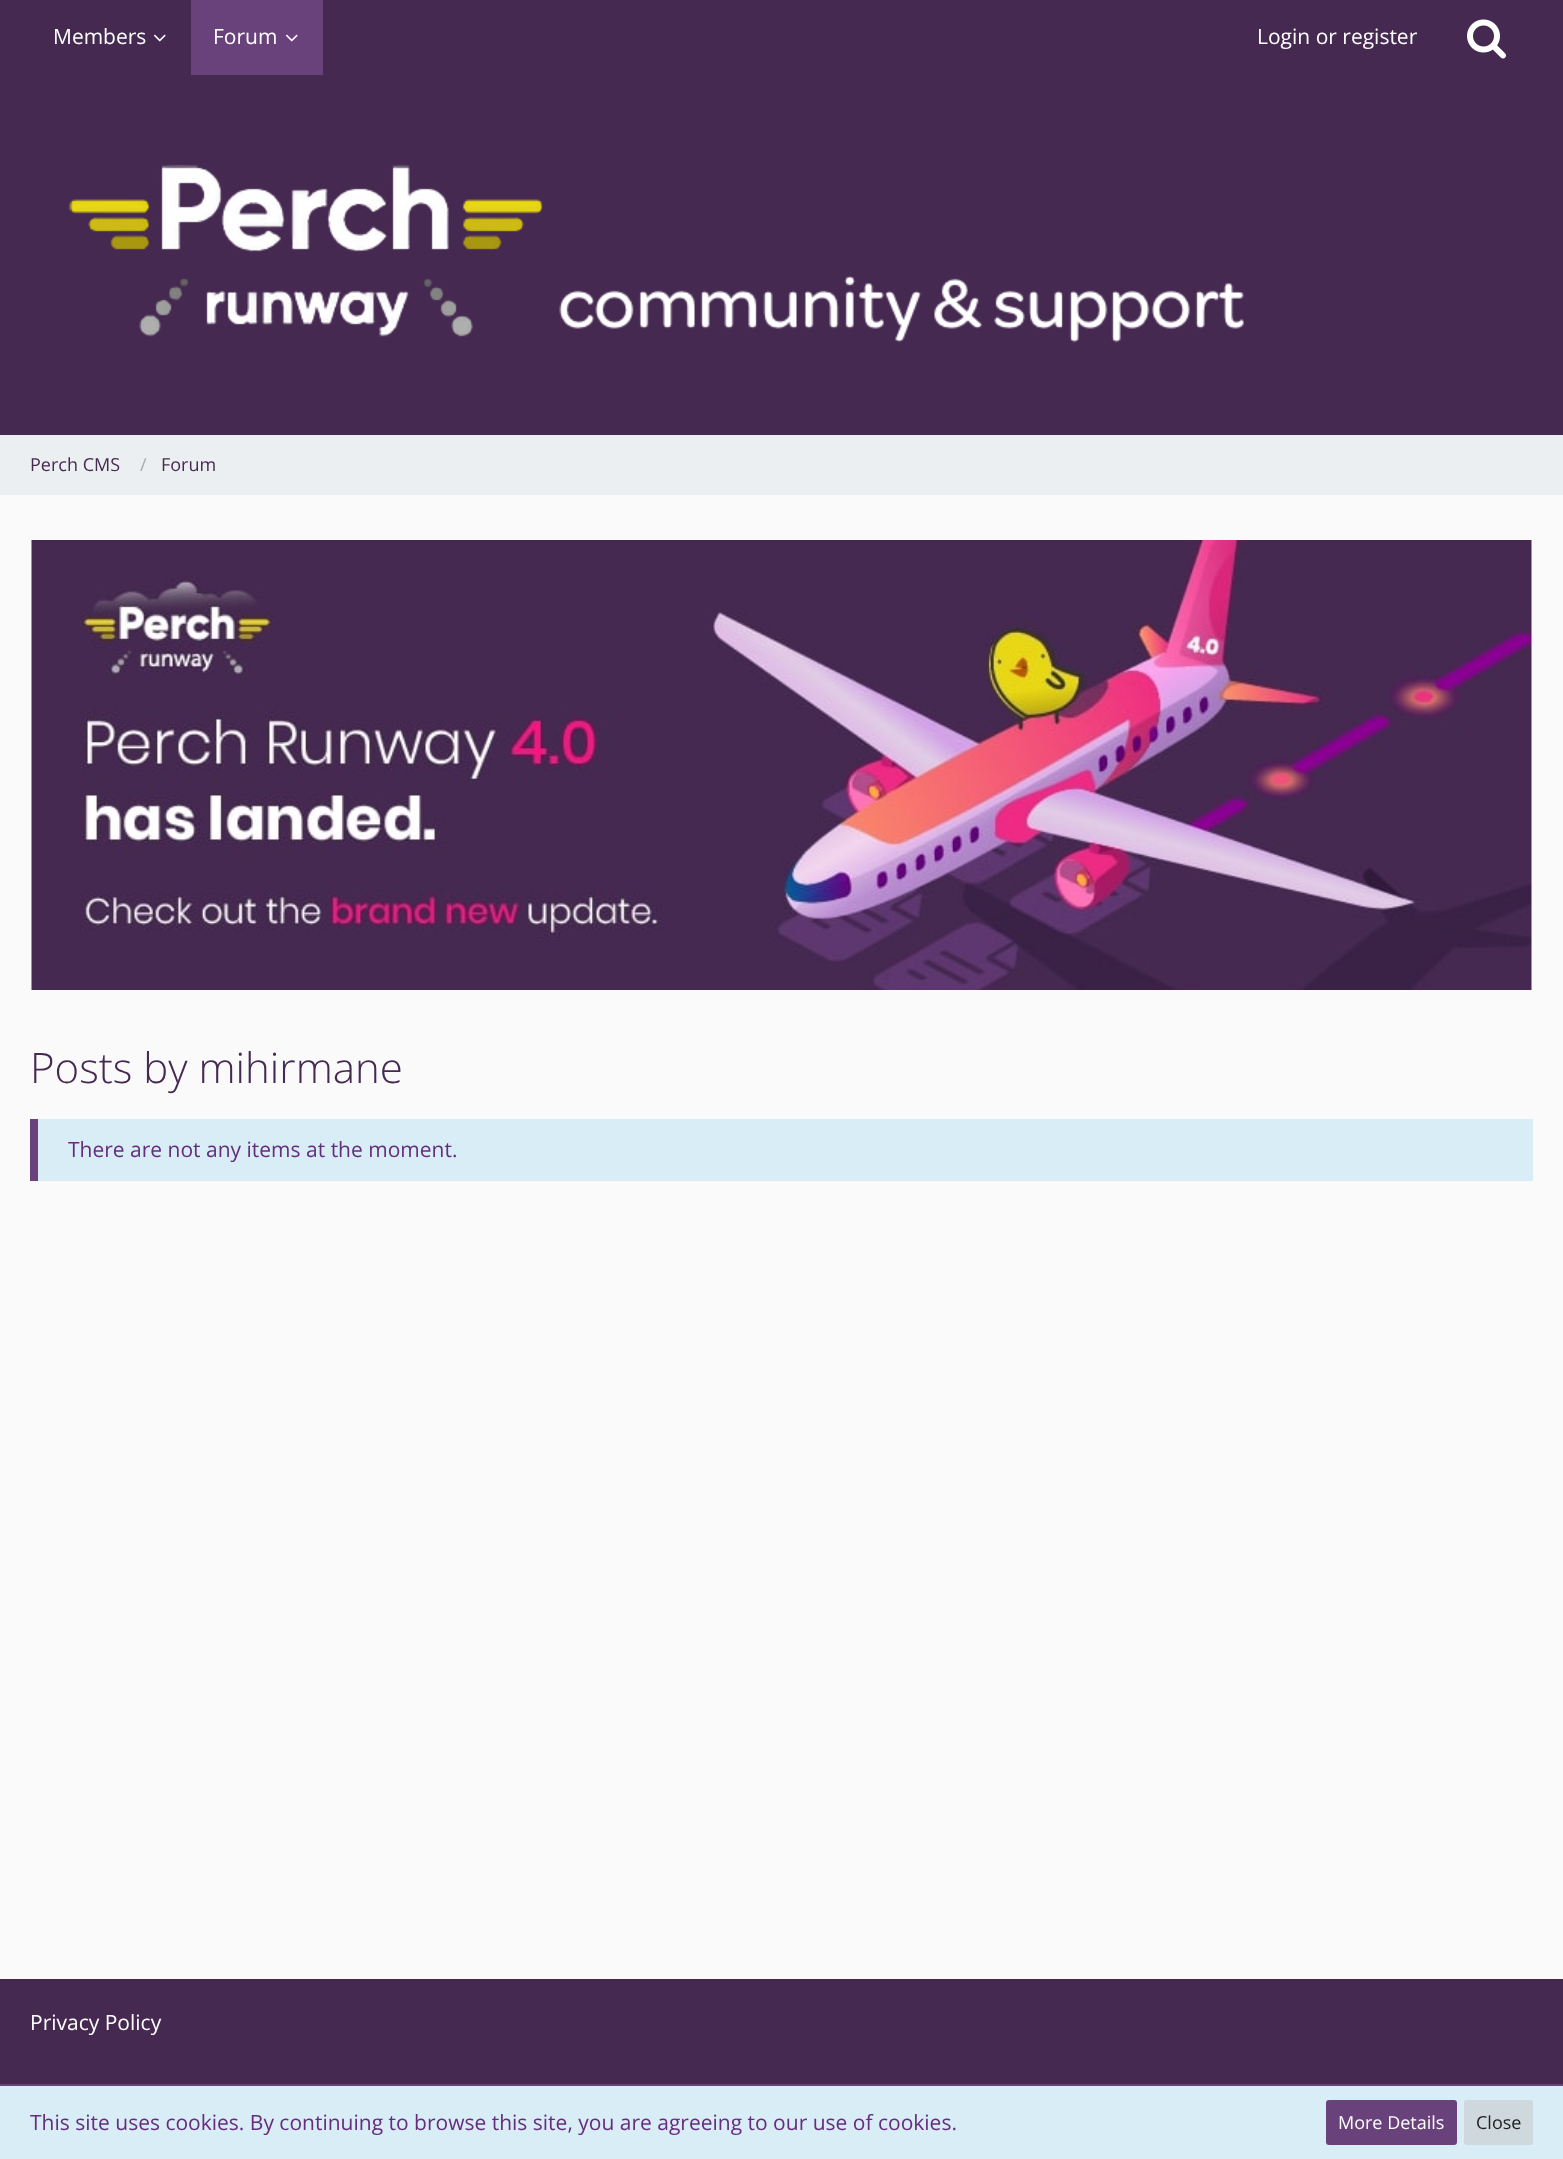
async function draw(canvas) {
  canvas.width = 1563;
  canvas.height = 2159;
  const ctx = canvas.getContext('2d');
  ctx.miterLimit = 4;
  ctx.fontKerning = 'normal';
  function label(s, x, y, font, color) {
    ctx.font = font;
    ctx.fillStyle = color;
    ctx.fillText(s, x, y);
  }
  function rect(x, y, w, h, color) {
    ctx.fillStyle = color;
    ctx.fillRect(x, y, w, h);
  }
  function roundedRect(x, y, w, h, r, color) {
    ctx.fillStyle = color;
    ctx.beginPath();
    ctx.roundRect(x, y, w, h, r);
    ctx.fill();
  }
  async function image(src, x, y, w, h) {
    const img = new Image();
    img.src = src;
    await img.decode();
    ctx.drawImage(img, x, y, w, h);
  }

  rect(0, 0, 1563, 2159, '#fafafa');
  rect(0, 0, 1563, 435, '#452951');
  label('Members', 53, 44, '21px Open Sans', '#fff');
  await image('assets/img1.png', 153, 34, 13, 8);
  rect(191, 0, 132, 75, '#6a427b');
  label('Forum', 213, 44, '21px Open Sans', '#fff');
  await image('assets/img2.png', 285, 34, 13, 8);
  label('Login or register', 1257, 44, '21px Open Sans', '#fff');
  await image('assets/img3.png', 1467, 19, 39, 40);
  await image('assets/img4.png', 68, 164, 1176, 179);
  rect(0, 435, 1563, 60, '#eceff1');
  label('Perch CMS', 30, 471, '18px Open Sans', '#452951');
  label('/', 140, 471, '18px Open Sans', '#aaa');
  label('Forum', 161, 471, '18px Open Sans', '#452951');
  await image('assets/img5.png', 31, 540, 1501, 450);
  label('Posts by mihirmane', 30, 1083, '300 42px Open Sans', '#452951');
  rect(38, 1119, 1495, 62, '#d9edf7');
  rect(30, 1119, 8, 62, '#6a427b');
  label('There are not any items at the moment.', 68, 1157, '21px Open Sans', '#652d7d');
  rect(0, 1979, 1563, 105, '#452951');
  label('Privacy Policy', 30, 2030, '21px Open Sans', '#fff');
  rect(0, 2086, 1563, 73, '#d9edf7');
  rect(0, 2084, 1563, 2, '#6a427b');
  label('This site uses cookies. By continuing to browse this site, you are agreeing to our use of cookies.', 30, 2130, '21px Open Sans', '#652d7d');
  roundedRect(1326, 2100, 131, 45, 3, '#6a427b');
  label('More Details', 1338, 2129, '18px Open Sans', '#fff');
  roundedRect(1464, 2100, 69, 45, 3, '#cfd8dc');
  label('Close', 1476, 2129, '18px Open Sans', '#212121');
}

draw(document.querySelector('canvas'));
